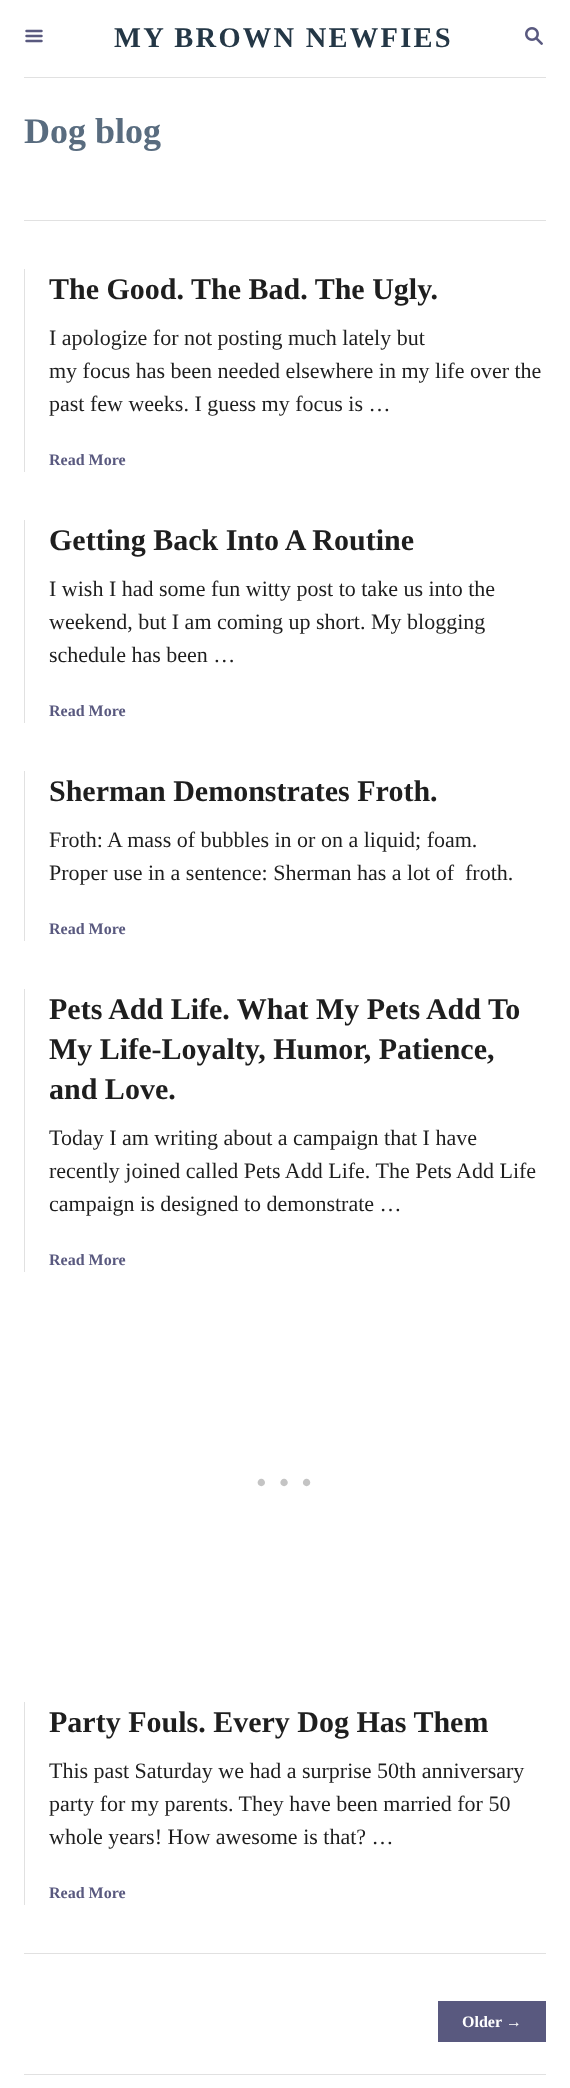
async function draw(canvas) {
  canvas.width = 570;
  canvas.height = 2088;
  const ctx = canvas.getContext('2d');
  ctx.miterLimit = 4;
  ctx.fontKerning = 'normal';
  function label(s, x, y, font, color) {
    ctx.font = font;
    ctx.fillStyle = color;
    ctx.fillText(s, x, y);
  }
  function rect(x, y, w, h, color) {
    ctx.fillStyle = color;
    ctx.fillRect(x, y, w, h);
  }
  async function image(src, x, y, w, h) {
    const img = new Image();
    img.src = src;
    await img.decode();
    ctx.drawImage(img, x, y, w, h);
  }

  rect(0, 0, 570, 2088, '#fff');
  rect(24, 77, 522, 1, '#e1e1e1');
  await image('assets/img1.png', 25, 29, 18, 14);
  ctx.letterSpacing = '2.25px';
  label('MY BROWN NEWFIES', 114, 47, 'bold 28.5px Liberation Serif', '#243746');
  await image('assets/img2.png', 525, 27, 18, 18);
  rect(24, 220, 522, 1, '#e1e1e1');
  ctx.letterSpacing = '0px';
  label('Dog blog', 24, 143, 'bold 36px Liberation Serif', '#596c7f');
  rect(24, 269, 1, 203, '#e1e1e1');
  label('The Good. The Bad. The Ugly.', 49, 299, 'bold 30px Liberation Serif', '#1e1e1e');
  label('I apologize for not posting much lately but', 49, 345, '22px Liberation Serif', '#1e1e1e');
  label('my focus has been needed elsewhere in my life over the', 49, 378, '22px Liberation Serif', '#1e1e1e');
  label('past few weeks. I guess my focus is …', 49, 411, '22px Liberation Serif', '#1e1e1e');
  label('Read More', 49, 465, 'bold 16px Liberation Serif', '#59597f');
  rect(24, 520, 1, 203, '#e1e1e1');
  label('Getting Back Into A Routine', 49, 550, 'bold 30px Liberation Serif', '#1e1e1e');
  label('I wish I had some fun witty post to take us into the', 49, 596, '22px Liberation Serif', '#1e1e1e');
  label('weekend, but I am coming up short. My blogging', 49, 629, '22px Liberation Serif', '#1e1e1e');
  label('schedule has been …', 49, 662, '22px Liberation Serif', '#1e1e1e');
  label('Read More', 49, 716, 'bold 16px Liberation Serif', '#59597f');
  rect(24, 771, 1, 170, '#e1e1e1');
  label('Sherman Demonstrates Froth.', 49, 801, 'bold 30px Liberation Serif', '#1e1e1e');
  label('Froth: A mass of bubbles in or on a liquid; foam.', 49, 847, '22px Liberation Serif', '#1e1e1e');
  label('Proper use in a sentence: Sherman has a lot of  froth.', 49, 880, '22px Liberation Serif', '#1e1e1e');
  label('Read More', 49, 934, 'bold 16px Liberation Serif', '#59597f');
  rect(24, 989, 1, 283, '#e1e1e1');
  label('Pets Add Life. What My Pets Add To', 49, 1019, 'bold 30px Liberation Serif', '#1e1e1e');
  label('My Life-Loyalty, Humor, Patience,', 49, 1059, 'bold 30px Liberation Serif', '#1e1e1e');
  label('and Love.', 49, 1099, 'bold 30px Liberation Serif', '#1e1e1e');
  label('Today I am writing about a campaign that I have', 49, 1145, '22px Liberation Serif', '#1e1e1e');
  label('recently joined called Pets Add Life. The Pets Add Life', 49, 1178, '22px Liberation Serif', '#1e1e1e');
  label('campaign is designed to demonstrate …', 49, 1211, '22px Liberation Serif', '#1e1e1e');
  label('Read More', 49, 1265, 'bold 16px Liberation Serif', '#59597f');
  ctx.letterSpacing = '2px';
  label('···', 251, 1503, '62px Liberation Serif', '#c4c4c4');
  rect(24, 1702, 1, 203, '#e1e1e1');
  ctx.letterSpacing = '0px';
  label('Party Fouls. Every Dog Has Them', 49, 1732, 'bold 30px Liberation Serif', '#1e1e1e');
  label('This past Saturday we had a surprise 50th anniversary', 49, 1778, '22px Liberation Serif', '#1e1e1e');
  label('party for my parents. They have been married for 50', 49, 1811, '22px Liberation Serif', '#1e1e1e');
  label('whole years! How awesome is that? …', 49, 1844, '22px Liberation Serif', '#1e1e1e');
  label('Read More', 49, 1898, 'bold 16px Liberation Serif', '#59597f');
  rect(24, 1953, 522, 1, '#e1e1e1');
  rect(438, 2001, 108, 41, '#59597f');
  label('Older →', 462, 2027, 'bold 16px Liberation Serif', '#fff');
  rect(24, 2074, 522, 1, '#e1e1e1');
}

draw(document.querySelector('canvas'));
